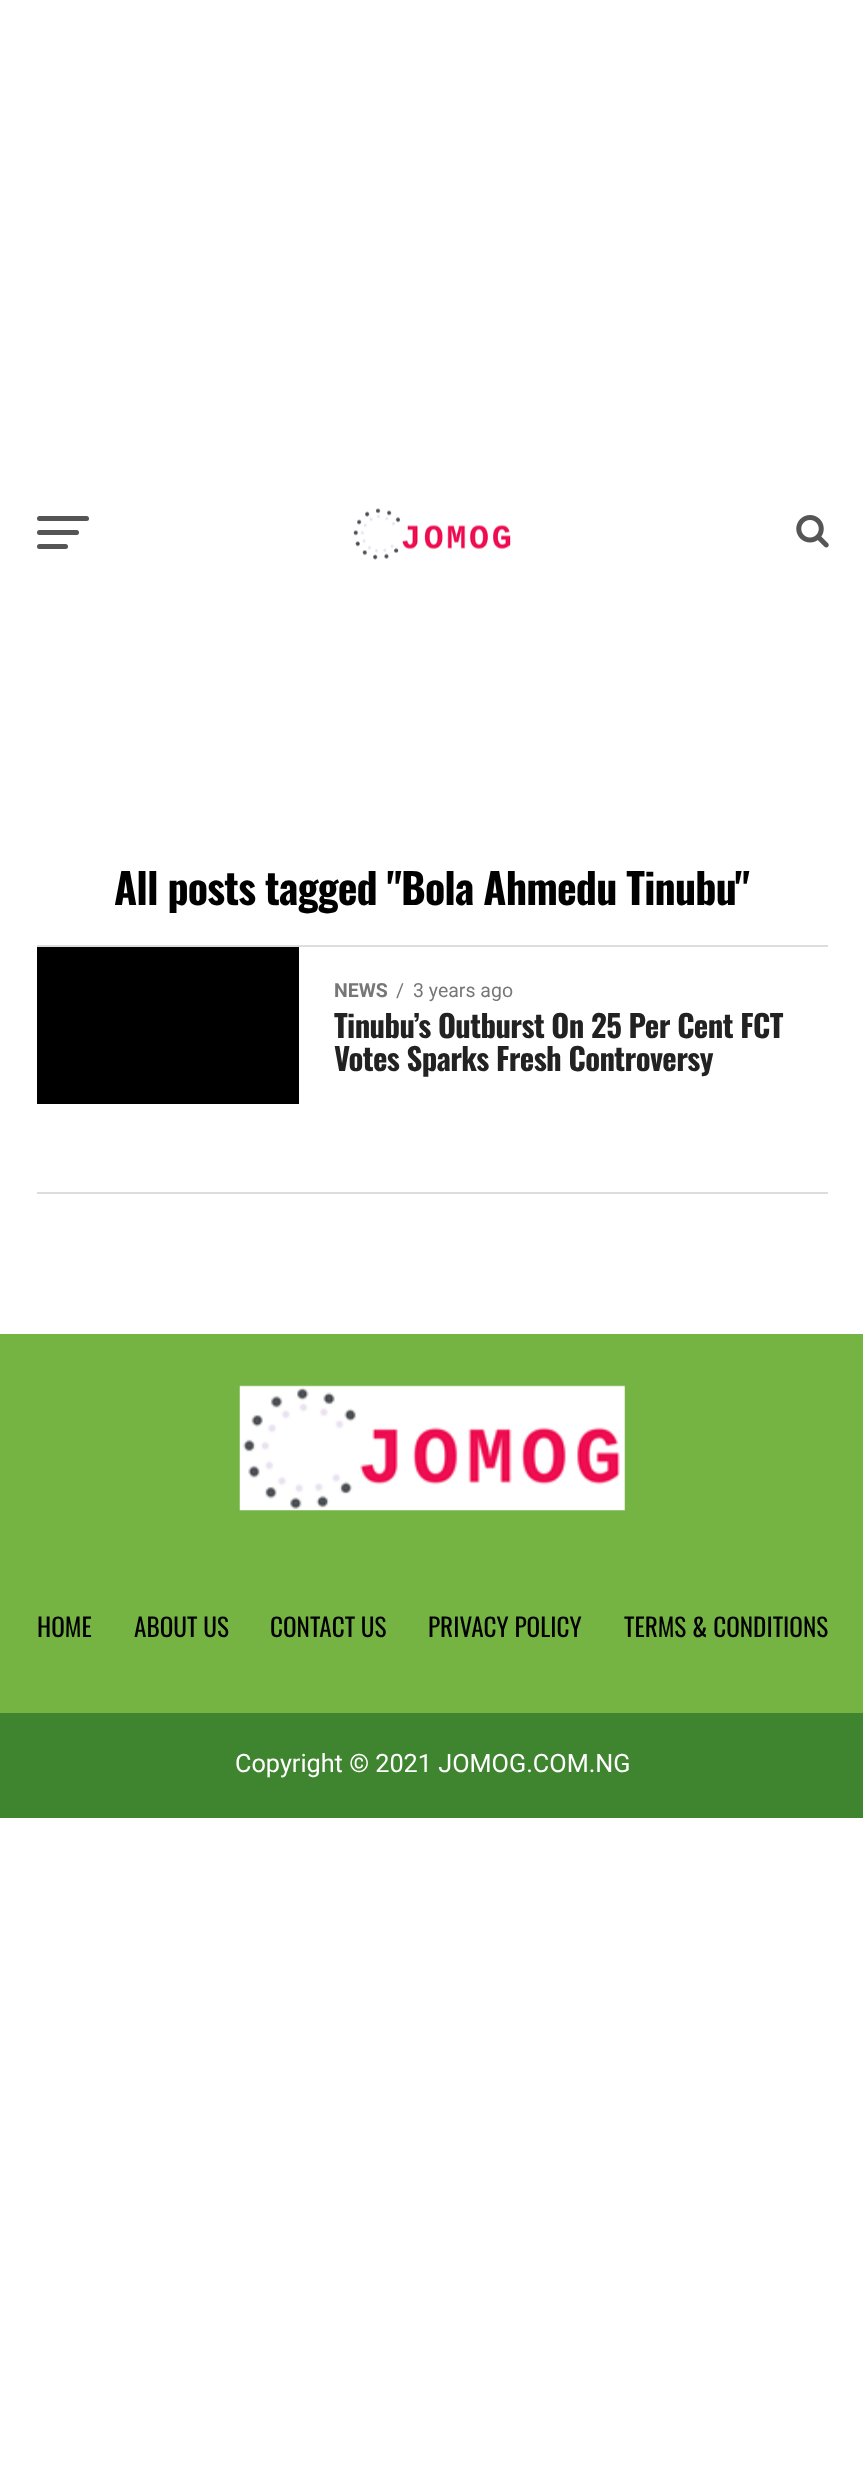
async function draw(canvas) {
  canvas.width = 863;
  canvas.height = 2480;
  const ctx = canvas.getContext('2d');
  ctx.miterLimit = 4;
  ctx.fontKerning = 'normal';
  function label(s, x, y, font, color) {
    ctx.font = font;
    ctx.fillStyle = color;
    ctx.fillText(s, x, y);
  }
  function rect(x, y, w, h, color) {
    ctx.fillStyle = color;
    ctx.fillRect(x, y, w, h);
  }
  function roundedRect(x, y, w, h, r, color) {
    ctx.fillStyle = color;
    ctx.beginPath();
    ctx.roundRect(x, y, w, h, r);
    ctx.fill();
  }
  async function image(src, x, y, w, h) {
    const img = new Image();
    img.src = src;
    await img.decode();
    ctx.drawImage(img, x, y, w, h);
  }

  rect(0, 0, 863, 2480, '#fff');
  roundedRect(37, 516, 52, 5, 2.5, '#555');
  roundedRect(37, 530, 42, 5, 2.5, '#555');
  roundedRect(37, 544, 31, 5, 2.5, '#555');
  await image('assets/img1.png', 353, 508, 158, 52);
  await image('assets/img2.png', 796, 515, 33, 33);
  ctx.letterSpacing = '-0.85px';
  label('All posts tagged "Bola Ahmedu Tinubu"', 114, 905, 'bold 42px Oswald', '#000');
  rect(37, 945, 791, 2, '#ddd');
  rect(37, 947, 262, 157, '#000');
  ctx.letterSpacing = '0px';
  label('NEWS', 334, 997, 'bold 19.5px Roboto', '#777');
  label('/', 396, 997, '19.5px Roboto', '#777');
  label('3 years ago', 413, 997, '19.5px Roboto', '#777');
  ctx.letterSpacing = '-0.6px';
  label('Tinubu’s Outburst On 25 Per Cent FCT', 334, 1038, 'bold 30.75px Oswald', '#222');
  label('Votes Sparks Fresh Controversy', 334, 1071, 'bold 30.75px Oswald', '#222');
  rect(37, 1192, 791, 2, '#ddd');
  rect(0, 1334, 863, 379, '#75b343');
  await image('assets/img3.png', 239, 1385, 386, 126);
  ctx.letterSpacing = '0px';
  label('HOME', 37, 1637, '25.25px Oswald', '#000');
  label('ABOUT US', 134, 1637, '25.25px Oswald', '#000');
  label('CONTACT US', 270, 1637, '25.25px Oswald', '#000');
  label('PRIVACY POLICY', 428, 1637, '25.25px Oswald', '#000');
  label('TERMS & CONDITIONS', 624, 1637, '25.25px Oswald', '#000');
  rect(0, 1713, 863, 105, '#3f842f');
  label('Copyright © 2021 JOMOG.COM.NG', 235, 1772, '25.25px Roboto', '#fff');
}

draw(document.querySelector('canvas'));
